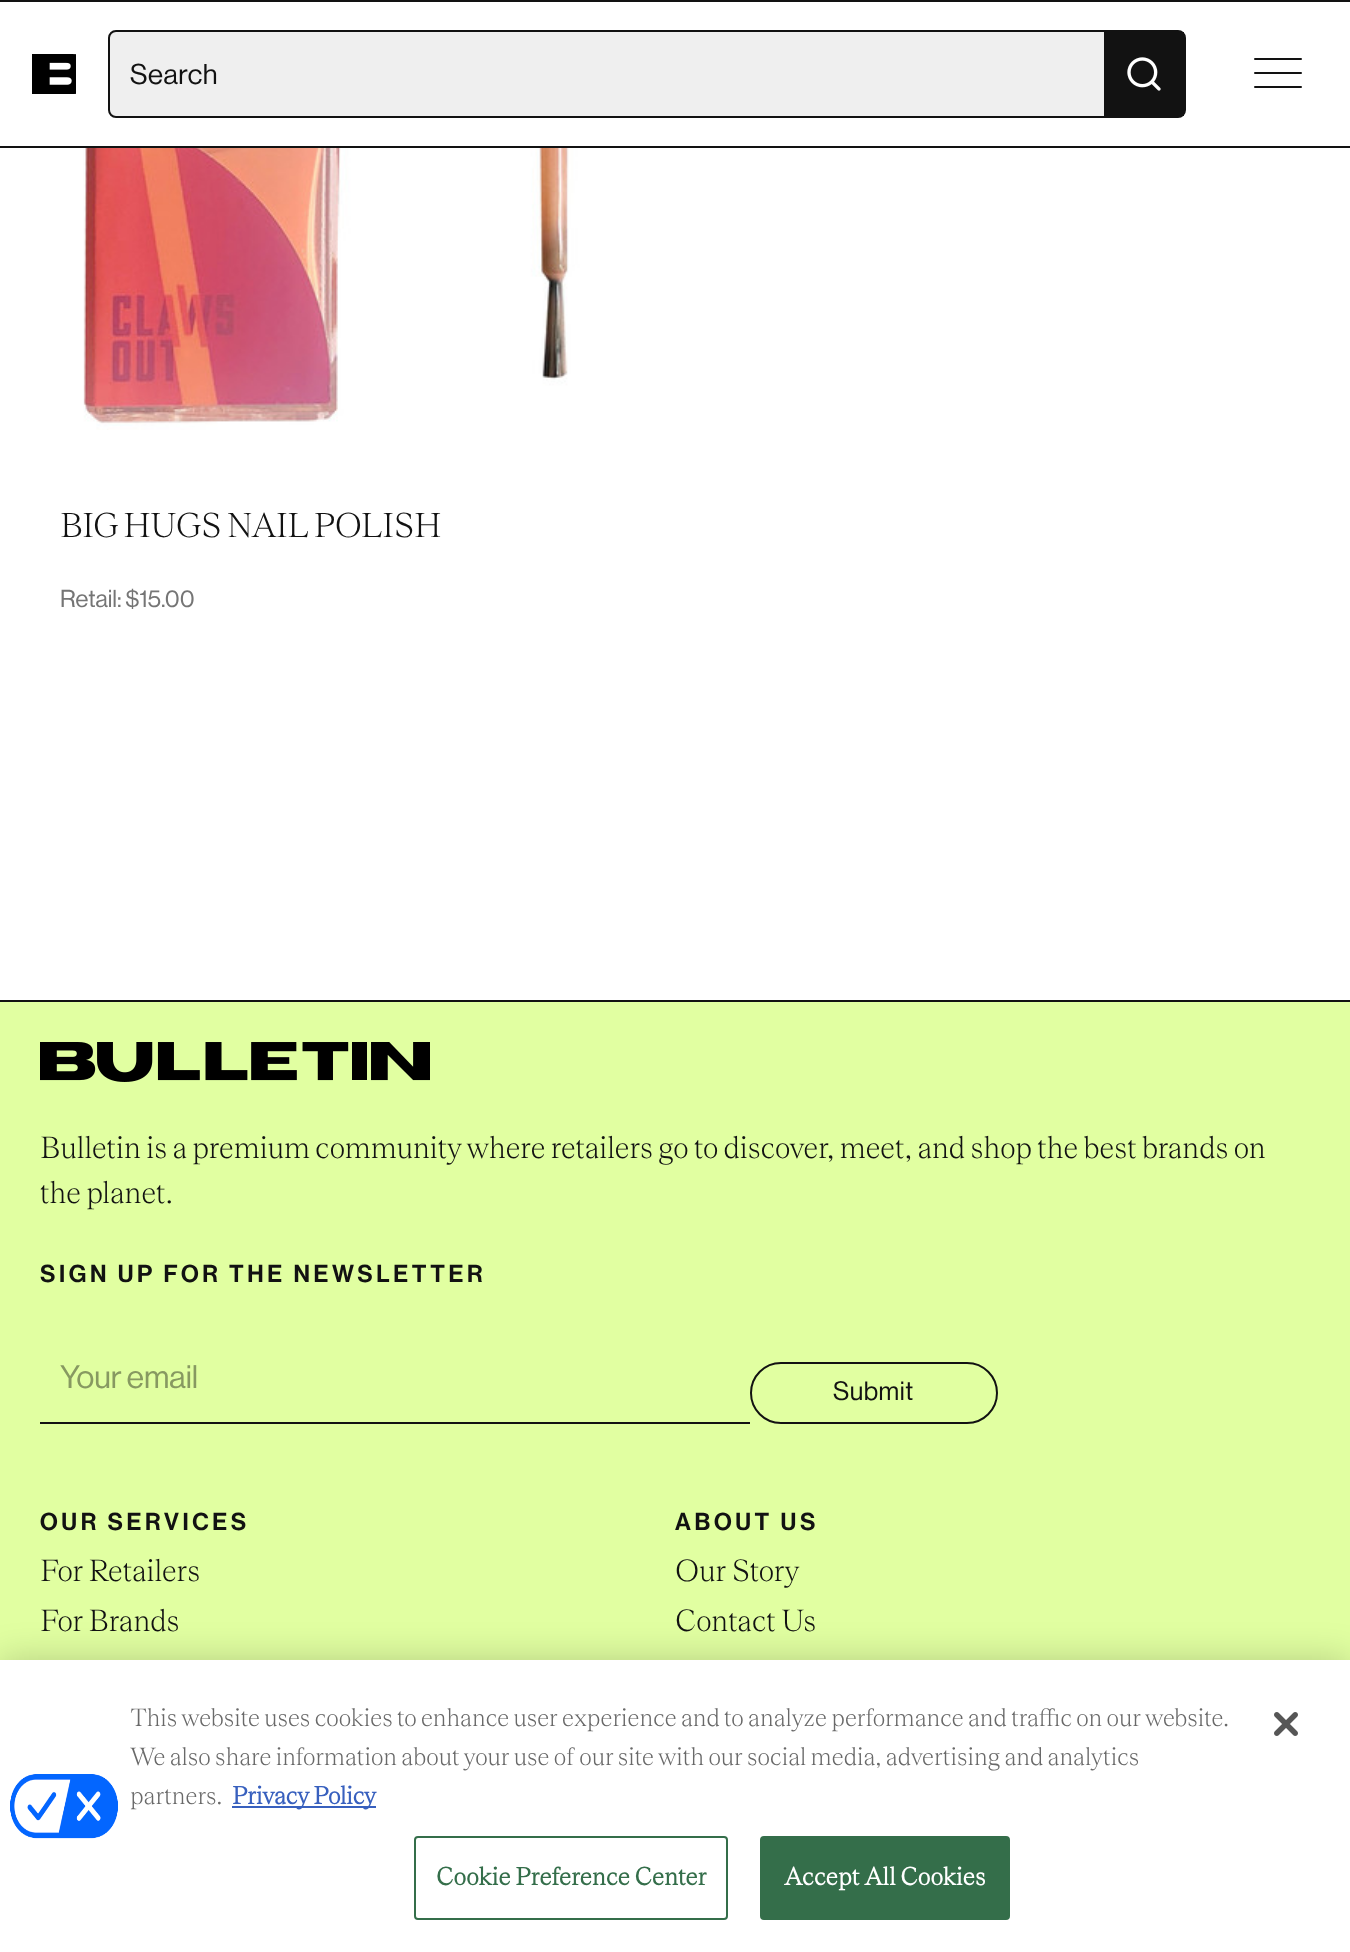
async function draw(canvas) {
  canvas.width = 1350;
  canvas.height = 1952;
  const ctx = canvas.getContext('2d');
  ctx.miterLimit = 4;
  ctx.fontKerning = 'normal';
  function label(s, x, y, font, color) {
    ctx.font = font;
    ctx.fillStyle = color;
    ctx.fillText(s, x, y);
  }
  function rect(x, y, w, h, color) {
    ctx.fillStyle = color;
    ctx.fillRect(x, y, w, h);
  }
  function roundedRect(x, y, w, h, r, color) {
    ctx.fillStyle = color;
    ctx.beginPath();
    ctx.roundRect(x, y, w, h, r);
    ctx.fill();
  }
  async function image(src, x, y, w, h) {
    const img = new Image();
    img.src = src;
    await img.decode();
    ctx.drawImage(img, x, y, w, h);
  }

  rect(0, 0, 1350, 1952, '#fff');
  rect(0, 0, 1350, 2, '#121212');
  rect(0, 146, 1350, 2, '#121212');
  await image('assets/img1.png', 32, 54, 44, 40);
  ctx.fillStyle = '#efefef';
  ctx.beginPath();
  ctx.roundRect(109, 31, 1076, 86, 7);
  ctx.fill();
  ctx.strokeStyle = '#121212';
  ctx.lineWidth = 2;
  ctx.stroke();
  ctx.letterSpacing = '0.5px';
  label('Search', 130, 84, '28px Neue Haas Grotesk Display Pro', '#121212');
  rect(1104, 32, 80, 84, '#121212');
  await image('assets/img2.png', 1127, 57, 34, 34);
  roundedRect(1254, 72, 48, 2, 1, '#121212');
  roundedRect(1254, 86, 48, 2, 1, '#121212');
  roundedRect(1254, 58, 48, 2, 1, '#121212');
  await image('assets/img3.png', 83, 148, 532, 282);
  ctx.letterSpacing = '-0.75px';
  label('BIG HUGS NAIL POLISH', 60, 537, '300 36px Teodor', '#121212');
  ctx.letterSpacing = '0px';
  label('Retail: $15.00', 60, 607, '24px Neue Haas Grotesk Display Pro', '#757575');
  rect(0, 1002, 1350, 658, '#e1ffa1');
  rect(0, 1000, 1350, 2, '#121212');
  await image('assets/img4.png', 40, 1042, 390, 40);
  label('Bulletin is a premium community where retailers go to discover, meet, and shop the best brands on', 40, 1158, '300 32px Teodor', '#121212');
  label('the planet.', 40, 1203, '300 32px Teodor', '#121212');
  ctx.letterSpacing = '3.6px';
  label('SIGN UP FOR THE NEWSLETTER', 40, 1282, '500 24px Neue Haas Grotesk Display Pro', '#121212');
  rect(40, 1422, 710, 2, '#121212');
  ctx.letterSpacing = '0px';
  label('Your email', 60, 1388, '32px Neue Haas Grotesk Display Pro', '#879961');
  ctx.beginPath();
  ctx.roundRect(751, 1363, 246, 60, 30);
  ctx.stroke();
  ctx.letterSpacing = '0.5px';
  label('Submit', 833, 1400, '26px Neue Haas Grotesk Display Pro', '#121212');
  ctx.letterSpacing = '3.6px';
  label('OUR SERVICES', 40, 1530, '500 24px Neue Haas Grotesk Display Pro', '#121212');
  ctx.letterSpacing = '0px';
  label('For Retailers', 40, 1581, '300 32px Teodor', '#121212');
  label('For Brands', 40, 1631, '300 32px Teodor', '#121212');
  ctx.letterSpacing = '3.6px';
  label('ABOUT US', 675, 1530, '500 24px Neue Haas Grotesk Display Pro', '#121212');
  ctx.letterSpacing = '0px';
  label('Our Story', 675, 1581, '300 32px Teodor', '#121212');
  label('Contact Us', 675, 1631, '300 32px Teodor', '#121212');
  ctx.fillStyle = '#00000033';
  ctx.filter = 'blur(18px)';
  ctx.beginPath();
  ctx.rect(0, 1660, 1350, 292);
  ctx.fill();
  ctx.filter = 'none';
  rect(0, 1660, 1350, 292, '#fff');
  await image('assets/img5.png', 10, 1774, 108, 65);
  label('This website uses cookies to enhance user experience and to analyze performance and traffic on our website.', 130, 1726, '300 26px Teodor', '#696969');
  label('We also share information about your use of our site with our social media, advertising and analytics', 130, 1765, '300 26px Teodor', '#696969');
  label('partners.', 130, 1804, '300 26px Teodor', '#696969');
  rect(232, 1806, 144, 2, '#3860be');
  label('Privacy Policy', 232, 1804, 'bold 26px Teodor', '#3860be');
  ctx.beginPath();
  ctx.roundRect(415, 1837, 312, 82, 3);
  ctx.strokeStyle = '#346e4a';
  ctx.stroke();
  ctx.letterSpacing = '0.25px';
  label('Cookie Preference Center', 436, 1885, 'bold 26px Teodor', '#346e4a');
  ctx.beginPath();
  ctx.roundRect(761, 1837, 248, 82, 3);
  ctx.fill();
  ctx.stroke();
  label('Accept All Cookies', 784, 1885, 'bold 26px Teodor', '#fff');
  await image('assets/img6.png', 1274, 1712, 24, 24);
}

draw(document.querySelector('canvas'));
